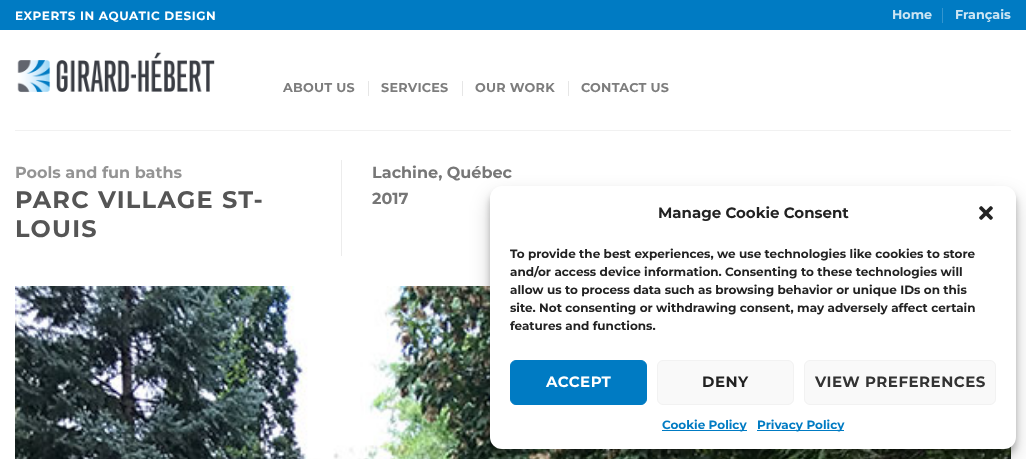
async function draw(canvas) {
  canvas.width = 1026;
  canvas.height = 459;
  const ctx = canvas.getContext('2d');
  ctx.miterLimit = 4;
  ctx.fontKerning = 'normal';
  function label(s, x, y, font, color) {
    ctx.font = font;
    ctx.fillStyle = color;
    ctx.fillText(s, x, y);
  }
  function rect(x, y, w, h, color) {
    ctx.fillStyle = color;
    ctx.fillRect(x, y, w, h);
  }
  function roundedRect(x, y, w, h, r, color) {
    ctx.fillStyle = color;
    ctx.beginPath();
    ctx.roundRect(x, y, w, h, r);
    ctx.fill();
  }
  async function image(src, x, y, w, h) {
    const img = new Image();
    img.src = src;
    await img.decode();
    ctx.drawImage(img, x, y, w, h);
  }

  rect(0, 0, 1026, 459, '#fff');
  rect(0, 0, 1026, 30, '#007bc3');
  ctx.letterSpacing = '0.6px';
  label('EXPERTS IN AQUATIC DESIGN', 15, 20, 'bold 12px Montserrat', '#fff');
  ctx.letterSpacing = '0px';
  label('Home', 892, 19, 'bold 12.75px Montserrat', '#cce5f3');
  rect(942, 8, 1, 15, '#3395cf');
  label('Français', 955, 19, 'bold 12.75px Montserrat', '#cce5f3');
  await image('assets/img1.png', 17, 52, 198, 41);
  ctx.letterSpacing = '0.25px';
  label('ABOUT US', 283, 92, 'bold 12.75px Montserrat', '#7d7d7d');
  rect(368, 81, 1, 15, '#e6e6e6');
  label('SERVICES', 381, 92, 'bold 12.75px Montserrat', '#7d7d7d');
  rect(462, 81, 1, 15, '#e6e6e6');
  label('OUR WORK', 475, 92, 'bold 12.75px Montserrat', '#7d7d7d');
  rect(568, 81, 1, 15, '#e6e6e6');
  label('CONTACT US', 581, 92, 'bold 12.75px Montserrat', '#7d7d7d');
  rect(15, 130, 996, 1, '#f1f1f1');
  rect(341, 160, 1, 96, '#ececec');
  ctx.letterSpacing = '0px';
  label('Pools and fun baths', 15, 178, 'bold 16px Montserrat', '#949494');
  ctx.letterSpacing = '1.25px';
  label('PARC VILLAGE ST-', 15, 208, 'bold 24px Montserrat', '#555');
  label('LOUIS', 15, 237, 'bold 24px Montserrat', '#555');
  ctx.letterSpacing = '0px';
  label('Lachine, Québec', 372, 178, 'bold 16px Montserrat', '#777');
  label('2017', 372, 204, 'bold 16px Montserrat', '#777');
  await image('assets/img2.png', 15, 286, 996, 173);
  ctx.fillStyle = '#0000003b';
  ctx.filter = 'blur(3px)';
  ctx.beginPath();
  ctx.roundRect(490, 192, 526, 263, 12);
  ctx.fill();
  ctx.filter = 'none';
  ctx.fillStyle = '#00000030';
  ctx.filter = 'blur(10px)';
  ctx.beginPath();
  ctx.roundRect(490, 196, 526, 263, 12);
  ctx.fill();
  ctx.filter = 'none';
  roundedRect(490, 186, 526, 263, 12, '#fff');
  label('Manage Cookie Consent', 658, 218, 'bold 15px Montserrat', '#222');
  await image('assets/img3.png', 979, 206, 14, 14);
  label('To provide the best experiences, we use technologies like cookies to store', 510, 258, 'bold 12px Montserrat', '#222');
  label('and/or access device information. Consenting to these technologies will', 510, 276, 'bold 12px Montserrat', '#222');
  label('allow us to process data such as browsing behavior or unique IDs on this', 510, 294, 'bold 12px Montserrat', '#222');
  label('site. Not consenting or withdrawing consent, may adversely affect certain', 510, 312, 'bold 12px Montserrat', '#222');
  label('features and functions.', 510, 330, 'bold 12px Montserrat', '#222');
  ctx.fillStyle = '#007bc3';
  ctx.beginPath();
  ctx.roundRect(510.5, 360.5, 136, 44, 5.5);
  ctx.fill();
  ctx.strokeStyle = '#007bc3';
  ctx.stroke();
  ctx.letterSpacing = '0.5px';
  label('ACCEPT', 546, 387, 'bold 15px Montserrat', '#fff');
  ctx.fillStyle = '#f9f9f9';
  ctx.beginPath();
  ctx.roundRect(657.5, 360.5, 136, 44, 5.5);
  ctx.fill();
  ctx.strokeStyle = '#f2f2f2';
  ctx.stroke();
  label('DENY', 702, 387, 'bold 15px Montserrat', '#222');
  ctx.fillStyle = '#f9f9f9';
  ctx.beginPath();
  ctx.roundRect(804.5, 360.5, 191, 44, 5.5);
  ctx.fill();
  ctx.stroke();
  label('VIEW PREFERENCES', 815, 387, 'bold 15px Montserrat', '#333');
  rect(662, 430, 85, 1, '#007bc3');
  ctx.letterSpacing = '0px';
  label('Cookie Policy', 662, 429, 'bold 12px Montserrat', '#007bc3');
  rect(757, 430, 87, 1, '#007bc3');
  label('Privacy Policy', 757, 429, 'bold 12px Montserrat', '#007bc3');
}

draw(document.querySelector('canvas'));
